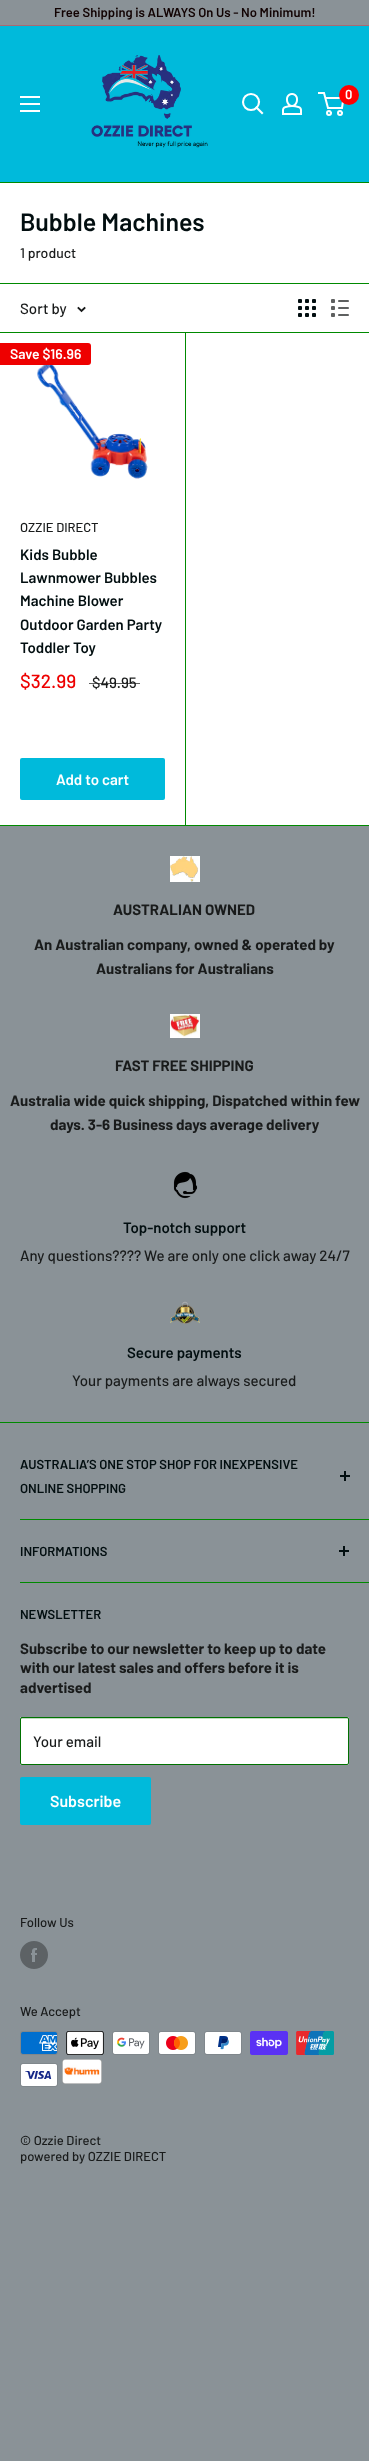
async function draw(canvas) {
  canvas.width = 369;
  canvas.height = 2461;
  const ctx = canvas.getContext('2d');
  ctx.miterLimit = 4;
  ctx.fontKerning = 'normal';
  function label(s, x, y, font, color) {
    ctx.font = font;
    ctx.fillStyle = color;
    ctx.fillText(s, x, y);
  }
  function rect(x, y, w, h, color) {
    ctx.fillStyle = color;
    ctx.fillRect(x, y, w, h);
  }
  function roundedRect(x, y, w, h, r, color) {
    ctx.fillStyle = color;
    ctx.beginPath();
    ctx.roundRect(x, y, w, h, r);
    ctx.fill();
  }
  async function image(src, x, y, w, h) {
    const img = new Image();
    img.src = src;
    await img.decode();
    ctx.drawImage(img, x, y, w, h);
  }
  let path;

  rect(0, 0, 369, 2461, '#8a9297');
  rect(0, 25, 369, 1, '#a86a73');
  label('Free Shipping is ALWAYS On Us - No Minimum!', 54, 17, '600 13px Barlow', '#120303');
  rect(0, 26, 369, 156, '#00badb');
  await image('assets/img1.png', 91, 55, 117, 93);
  path = new Path2D('M262 113L256.5 107.5');
  ctx.strokeStyle = '#fff';
  ctx.lineWidth = 2.1;
  ctx.lineCap = 'square';
  ctx.stroke(path);
  ctx.beginPath();
  ctx.arc(251, 102, 8, 0, 2 * Math.PI);
  ctx.stroke();
  await image('assets/img2.png', 282, 93, 20, 22);
  ctx.beginPath();
  ctx.arc(329, 113, 2, 0, 2 * Math.PI);
  ctx.lineWidth = 2;
  ctx.stroke();
  ctx.beginPath();
  ctx.arc(340, 113, 2, 0, 2 * Math.PI);
  ctx.stroke();
  path = new Path2D('M325.5 98H343.5L342 108H328L324 93H318');
  ctx.lineCap = 'butt';
  ctx.stroke(path);
  ctx.fillStyle = '#f00';
  ctx.beginPath();
  ctx.arc(349, 95, 10, 0, 2 * Math.PI);
  ctx.fill();
  label('0', 345, 99, '600 13px Barlow', '#fff');
  await image('assets/img3.png', 20, 96, 20, 16);
  rect(0, 183, 369, 642, '#fff');
  rect(0, 182, 369, 1, '#008a00');
  rect(0, 825, 369, 1, '#008a00');
  label('Bubble Machines', 20, 231, '600 25px Barlow', '#020e10');
  label('1 product', 20, 258, '500 14px Barlow', '#191b1b');
  rect(0, 283, 369, 1, '#008a00');
  rect(185, 332, 1, 493, '#008a00');
  rect(0, 332, 369, 1, '#008a00');
  label('Sort by', 20, 314, '500 15px Barlow', '#191b1b');
  path = new Path2D('M84.5 308L81.5 311L78.5 308');
  ctx.strokeStyle = '#191b1b';
  ctx.lineWidth = 1.9;
  ctx.lineCap = 'square';
  ctx.stroke(path);
  await image('assets/img4.png', 298, 299, 18, 18);
  await image('assets/img5.png', 331, 299, 18, 18);
  ctx.fillStyle = '#e00';
  ctx.beginPath();
  ctx.roundRect(0, 343, 91, 22, [0, 3, 3, 0]);
  ctx.fill();
  label('Save $16.96', 10, 359, '600 14px Barlow', '#fff');
  await image('assets/img6.png', 37, 365, 111, 114);
  label('OZZIE DIRECT', 20, 532, '500 13px Barlow', '#191b1b');
  label('Kids Bubble', 20, 560, '600 15px Barlow', '#020e10');
  label('Lawnmower Bubbles', 20, 583, '600 15px Barlow', '#020e10');
  label('Machine Blower', 20, 606, '600 15px Barlow', '#020e10');
  label('Outdoor Garden Party', 20, 630, '600 15px Barlow', '#020e10');
  label('Toddler Toy', 20, 653, '600 15px Barlow', '#020e10');
  label('$32.99', 20, 688, '500 19px Barlow', '#e00');
  label('$49.95', 92, 688, '500 15px Barlow', '#191b1b');
  rect(89, 683, 51, 1, '#191b1bb3');
  roundedRect(20, 758, 145, 42, 2, '#00badb');
  label('Add to cart', 56, 785, '600 15px Barlow', '#fff');
  await image('assets/img7.png', 170, 856, 30, 26);
  label('AUSTRALIAN OWNED', 113, 915, 'bold 15px Barlow', '#191b1b');
  label('An Australian company, owned & operated by', 34, 950, 'bold 15px Barlow', '#191b1b');
  label('Australians for Australians', 96, 974, 'bold 15px Barlow', '#191b1b');
  await image('assets/img8.png', 170, 1014, 30, 24);
  label('FAST FREE SHIPPING', 115, 1071, 'bold 15px Barlow', '#191b1b');
  label('Australia wide quick shipping, Dispatched within few', 10, 1106, 'bold 15px Barlow', '#191b1b');
  label('days. 3-6 Business days average delivery', 50, 1130, 'bold 15px Barlow', '#191b1b');
  await image('assets/img9.png', 173, 1171, 25, 28);
  label('Top-notch support', 123, 1233, '600 15px Barlow', '#020e10');
  label('Any questions???? We are only one click away 24/7', 20, 1261, '500 15px Barlow', '#191b1b');
  await image('assets/img10.png', 170, 1301, 30, 23);
  label('Secure payments', 127, 1358, '600 15px Barlow', '#020e10');
  label('Your payments are always secured', 72, 1386, '500 15px Barlow', '#191b1b');
  rect(0, 1422, 369, 1, '#008a00');
  rect(20, 1519, 349, 1, '#008a00');
  label('AUSTRALIA’S ONE STOP SHOP FOR INEXPENSIVE', 20, 1469, '600 13px Barlow', '#020e10');
  label('ONLINE SHOPPING', 20, 1493, '600 13px Barlow', '#020e10');
  rect(344, 1471, 2, 10, '#020e10');
  rect(340, 1475, 10, 2, '#020e10');
  rect(20, 1582, 349, 1, '#008a00');
  label('INFORMATIONS', 20, 1556, '600 13px Barlow', '#020e10');
  rect(343, 1546, 2, 10, '#020e10');
  rect(339, 1550, 10, 2, '#020e10');
  label('NEWSLETTER', 20, 1619, '600 13px Barlow', '#020e10');
  label('Subscribe to our newsletter to keep up to date', 20, 1654, 'bold 15px Barlow', '#191b1b');
  label('with our latest sales and offers before it is', 20, 1673, 'bold 15px Barlow', '#191b1b');
  label('advertised', 20, 1693, 'bold 15px Barlow', '#191b1b');
  roundedRect(20, 1717, 329, 48, 2, '#fff');
  ctx.fillStyle = '#bfdcbf';
  path = new Path2D('M22 1719H347C348 1719 348 1719 348 1720C348 1719 348 1718 347 1718H22C21 1718 21 1719 21 1720C21 1719 21 1719 22 1719Z');
  ctx.fill(path);
  ctx.beginPath();
  ctx.roundRect(20.5, 1717.5, 328, 47, 1.5);
  ctx.strokeStyle = '#007100';
  ctx.lineWidth = 1;
  ctx.stroke();
  label('Your email', 33, 1747, '500 15px Barlow', '#191b1b');
  roundedRect(20, 1777, 131, 48, 2, '#00badb');
  label('Subscribe', 50, 1807, '600 16px Barlow', '#fff');
  label('Follow Us', 20, 1927, '500 13px Barlow', '#191b1b');
  await image('assets/img11.png', 20, 1941, 28, 28);
  label('We Accept', 20, 2016, '500 13px Barlow', '#191b1b');
  await image('assets/img12.png', 20, 2031, 38, 24);
  await image('assets/img13.png', 66, 2031, 38, 24);
  await image('assets/img14.png', 112, 2031, 38, 24);
  await image('assets/img15.png', 158, 2031, 38, 24);
  await image('assets/img16.png', 204, 2031, 38, 24);
  await image('assets/img17.png', 250, 2031, 38, 24);
  await image('assets/img18.png', 296, 2031, 38, 24);
  await image('assets/img19.png', 20, 2063, 38, 24);
  await image('assets/img20.png', 62, 2059, 40, 25);
  label('© Ozzie Direct', 20, 2145, '500 13px Barlow', '#191b1b');
  label('powered by OZZIE DIRECT', 20, 2161, '500 13px Barlow', '#191b1b');
}

draw(document.querySelector('canvas'));
